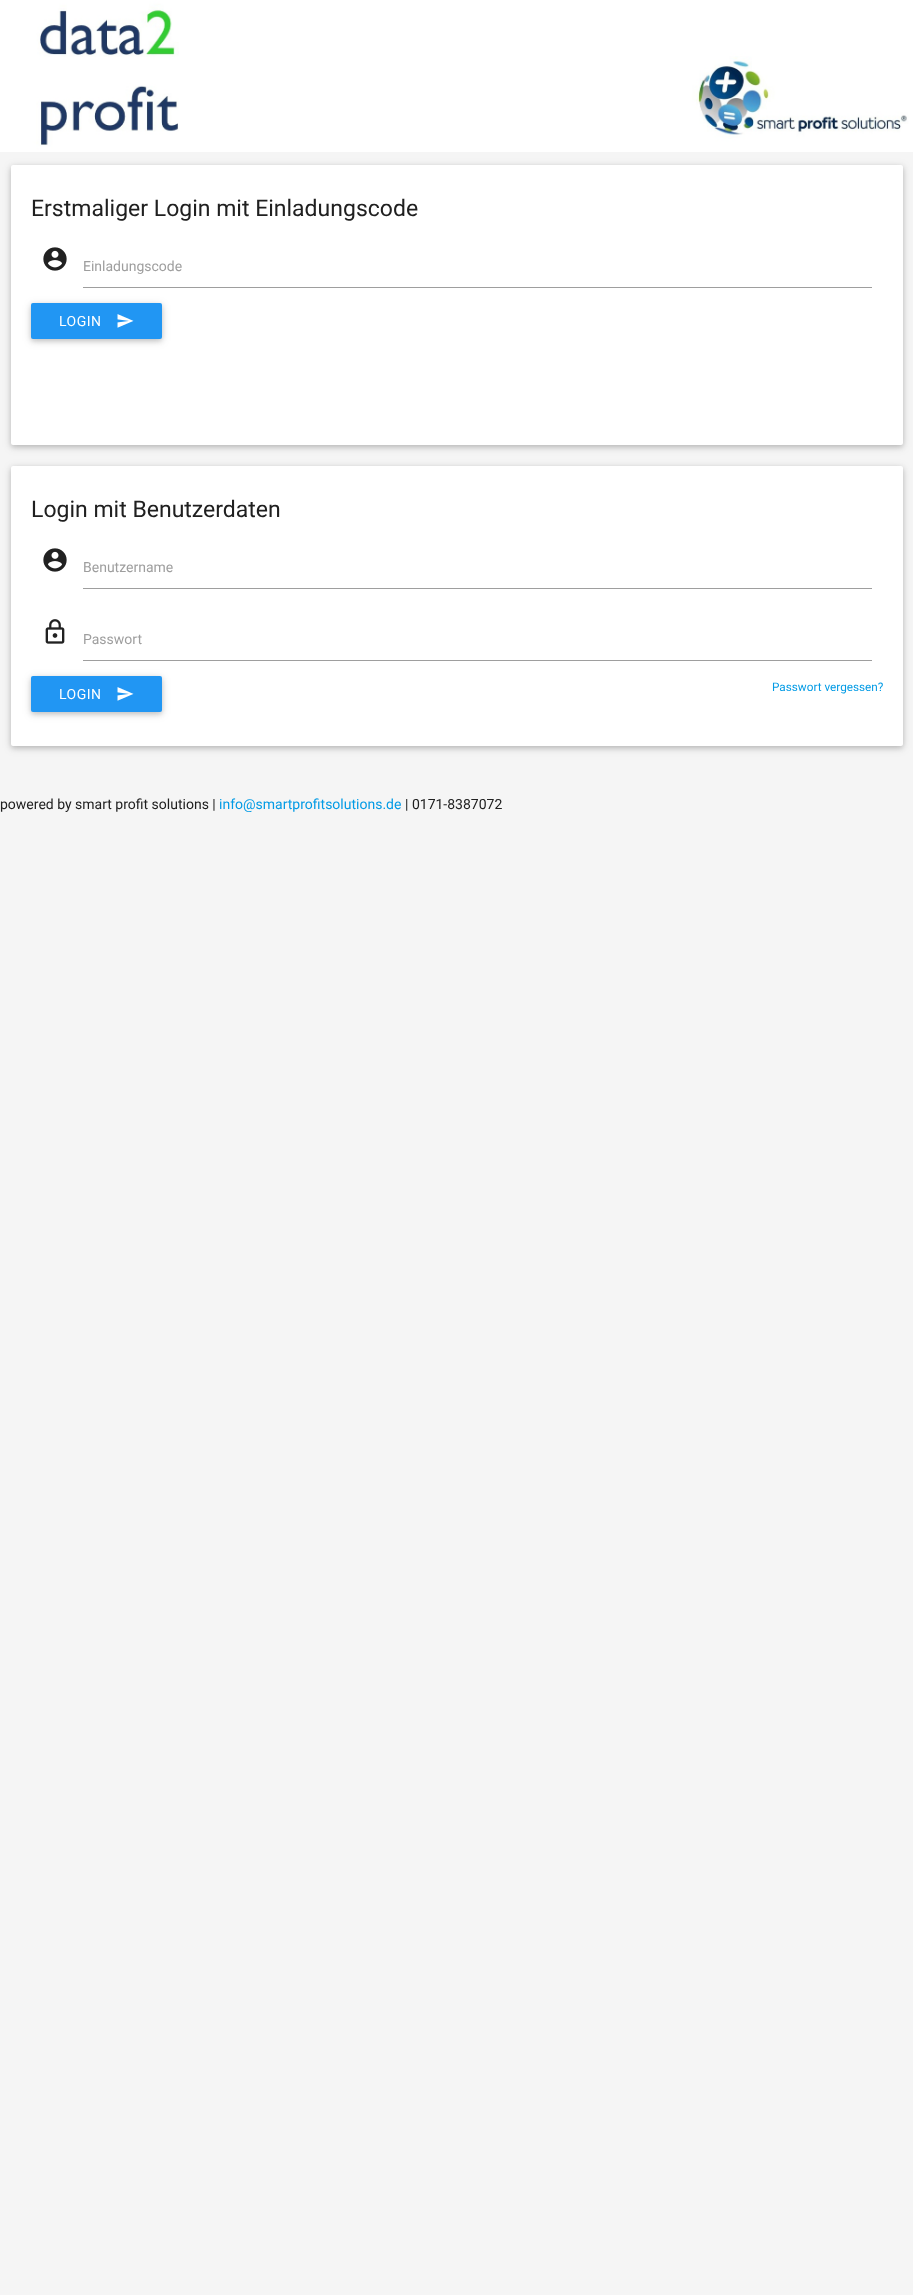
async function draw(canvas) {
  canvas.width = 913;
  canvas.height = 2295;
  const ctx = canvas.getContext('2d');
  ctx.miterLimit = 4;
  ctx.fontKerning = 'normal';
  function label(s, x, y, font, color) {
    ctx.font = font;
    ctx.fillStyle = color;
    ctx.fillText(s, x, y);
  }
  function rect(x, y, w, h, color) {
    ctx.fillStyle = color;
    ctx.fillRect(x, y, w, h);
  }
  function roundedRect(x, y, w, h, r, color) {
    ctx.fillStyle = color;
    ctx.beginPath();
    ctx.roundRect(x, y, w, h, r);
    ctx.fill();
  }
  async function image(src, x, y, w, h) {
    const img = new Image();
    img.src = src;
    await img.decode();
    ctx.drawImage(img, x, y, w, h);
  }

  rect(0, 0, 913, 2295, '#f5f5f5');
  await image('assets/img1.png', 0, 0, 913, 152);
  ctx.fillStyle = '#0000001f';
  ctx.filter = 'blur(5px)';
  ctx.beginPath();
  ctx.roundRect(11, 167, 892, 280, 2);
  ctx.fill();
  ctx.filter = 'none';
  ctx.fillStyle = '#00000029';
  ctx.filter = 'blur(2.5px)';
  ctx.beginPath();
  ctx.roundRect(11, 167, 892, 280, 2);
  ctx.fill();
  ctx.filter = 'none';
  roundedRect(11, 165, 892, 280, 2, '#fff');
  label('Erstmaliger Login mit Einladungscode', 31, 216, '23px Roboto', '#202020');
  await image('assets/img2.png', 43, 247, 24, 24);
  label('Einladungscode', 83, 271, '14px Roboto', '#9e9e9e');
  rect(83, 287, 789, 1, '#9e9e9e');
  ctx.fillStyle = '#0000001f';
  ctx.filter = 'blur(5px)';
  ctx.beginPath();
  ctx.roundRect(31, 305, 131, 36, 2);
  ctx.fill();
  ctx.filter = 'none';
  ctx.fillStyle = '#00000029';
  ctx.filter = 'blur(2.5px)';
  ctx.beginPath();
  ctx.roundRect(31, 305, 131, 36, 2);
  ctx.fill();
  ctx.filter = 'none';
  roundedRect(31, 303, 131, 36, 2, '#2196f3');
  ctx.letterSpacing = '0.5px';
  label('LOGIN', 59, 326, '14px Roboto', '#fff');
  await image('assets/img3.png', 117, 314, 17, 14);
  ctx.fillStyle = '#0000001f';
  ctx.filter = 'blur(5px)';
  ctx.beginPath();
  ctx.roundRect(11, 468, 892, 280, 2);
  ctx.fill();
  ctx.filter = 'none';
  ctx.fillStyle = '#00000029';
  ctx.filter = 'blur(2.5px)';
  ctx.beginPath();
  ctx.roundRect(11, 468, 892, 280, 2);
  ctx.fill();
  ctx.filter = 'none';
  roundedRect(11, 466, 892, 280, 2, '#fff');
  ctx.letterSpacing = '0px';
  label('Login mit Benutzerdaten', 31, 517, '23px Roboto', '#202020');
  await image('assets/img2.png', 43, 548, 24, 24);
  label('Benutzername', 83, 572, '14px Roboto', '#9e9e9e');
  rect(83, 588, 789, 1, '#9e9e9e');
  await image('assets/img4.png', 45, 619, 20, 25);
  label('Passwort', 83, 644, '14px Roboto', '#9e9e9e');
  rect(83, 660, 789, 1, '#9e9e9e');
  ctx.fillStyle = '#0000001f';
  ctx.filter = 'blur(5px)';
  ctx.beginPath();
  ctx.roundRect(31, 678, 131, 36, 2);
  ctx.fill();
  ctx.filter = 'none';
  ctx.fillStyle = '#00000029';
  ctx.filter = 'blur(2.5px)';
  ctx.beginPath();
  ctx.roundRect(31, 678, 131, 36, 2);
  ctx.fill();
  ctx.filter = 'none';
  roundedRect(31, 676, 131, 36, 2, '#2196f3');
  ctx.letterSpacing = '0.5px';
  label('LOGIN', 59, 699, '14px Roboto', '#fff');
  await image('assets/img3.png', 117, 687, 17, 14);
  ctx.letterSpacing = '0px';
  label('Passwort vergessen?', 772, 691, '11.75px Roboto', '#039be5');
  label('powered by smart profit solutions |', 0, 809, '14px Roboto', '#202020');
  label('info@smartprofitsolutions.de', 219, 809, '14px Roboto', '#039be5');
  label('| 0171-8387072', 405, 809, '14px Roboto', '#202020');
}

draw(document.querySelector('canvas'));
